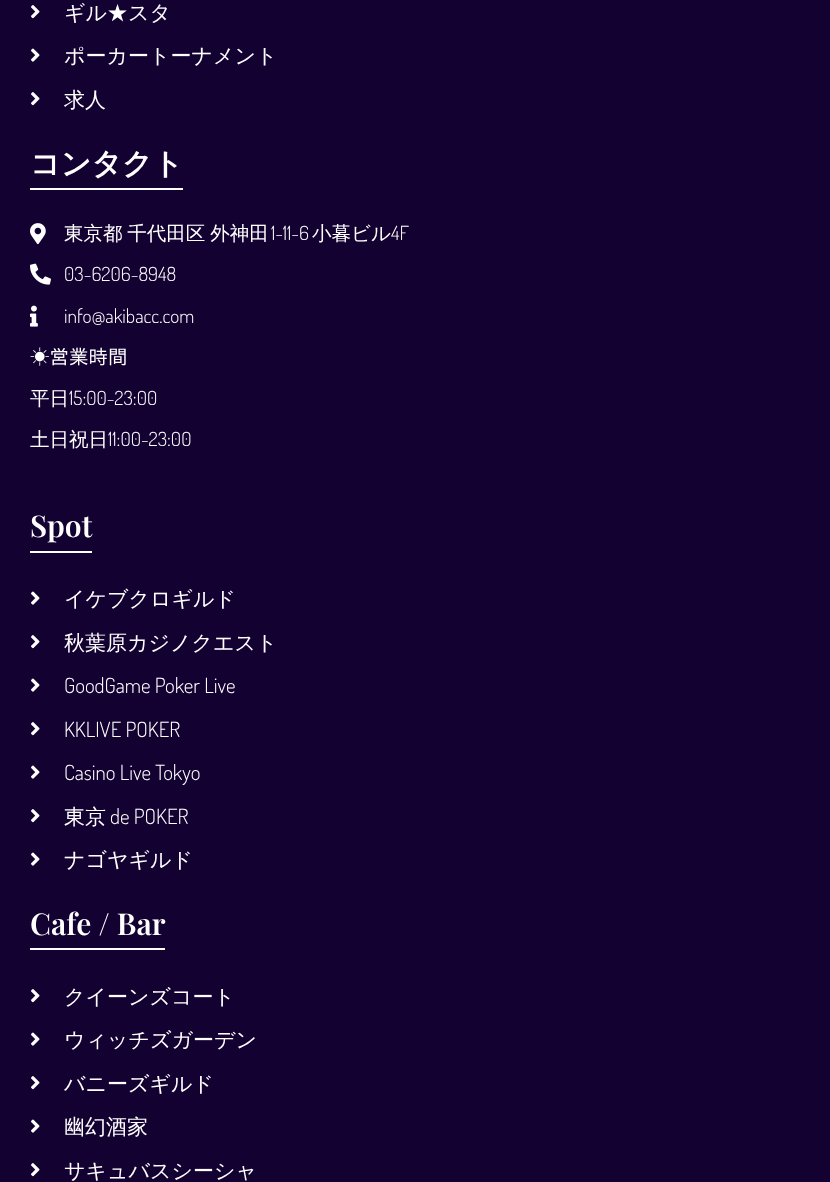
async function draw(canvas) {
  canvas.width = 830;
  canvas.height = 1182;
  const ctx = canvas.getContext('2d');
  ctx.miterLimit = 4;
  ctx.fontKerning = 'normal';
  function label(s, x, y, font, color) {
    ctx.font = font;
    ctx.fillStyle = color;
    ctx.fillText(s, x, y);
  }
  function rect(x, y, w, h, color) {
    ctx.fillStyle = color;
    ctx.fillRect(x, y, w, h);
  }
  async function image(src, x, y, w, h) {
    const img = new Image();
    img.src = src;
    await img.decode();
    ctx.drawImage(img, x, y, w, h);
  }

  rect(0, 0, 830, 1182, '#130131');
  await image('assets/img1.png', 31, 5, 9, 14);
  label('ギル★スタ', 64, 20, '500 21px WenQuanYi Zen Hei', '#fff');
  await image('assets/img2.png', 31, 48, 9, 14);
  label('ポーカートーナメント', 64, 63, '500 21px WenQuanYi Zen Hei', '#fff');
  await image('assets/img1.png', 31, 92, 9, 14);
  label('求人', 64, 107, '500 21px WenQuanYi Zen Hei', '#fff');
  rect(30, 188, 153, 2, '#fff');
  label('コンタクト', 30, 174, 'bold 30px WenQuanYi Zen Hei', '#fff');
  await image('assets/img3.png', 30, 223, 16, 22);
  ctx.wordSpacing = '-1px';
  label('東京都 千代田区 外神田', 64, 240, '500 19.5px WenQuanYi Zen Hei', '#fff');
  ctx.wordSpacing = '0px';
  label('1-11-6', 271, 240, '300 19.5px Dosis', '#fff');
  label('小暮ビル', 312, 240, '500 19.5px WenQuanYi Zen Hei', '#fff');
  label('4F', 391, 240, '300 19.5px Dosis', '#fff');
  await image('assets/img4.png', 30, 263, 21, 22);
  label('03-6206-8948', 64, 281, '300 19.5px Dosis', '#fff');
  await image('assets/img5.png', 30, 305, 8, 22);
  label('info@akibacc.com', 64, 323, '300 19.5px Dosis', '#fff');
  label('☀︎営業時間', 30, 364, '19.5px IPAPGothic', '#fff');
  label('平日', 30, 405, '500 19.5px WenQuanYi Zen Hei', '#fff');
  label('15:00-23:00', 69, 405, '300 19.5px Dosis', '#fff');
  label('土日祝日', 30, 446, '500 19.5px WenQuanYi Zen Hei', '#fff');
  label('11:00-23:00', 108, 446, '300 19.5px Dosis', '#fff');
  rect(30, 551, 62, 2, '#fff');
  label('Spot', 30, 537, '600 30px Playfair Display', '#fff');
  await image('assets/img2.png', 31, 591, 9, 14);
  label('イケブクロギルド', 64, 606, '500 21px WenQuanYi Zen Hei', '#fff');
  await image('assets/img1.png', 31, 635, 9, 14);
  label('秋葉原カジノクエスト', 64, 650, '500 21px WenQuanYi Zen Hei', '#fff');
  await image('assets/img2.png', 31, 678, 9, 14);
  label('GoodGame Poker Live', 64, 693, '300 21px Dosis', '#fff');
  await image('assets/img1.png', 31, 722, 9, 14);
  label('KKLIVE POKER', 64, 737, '300 21px Dosis', '#fff');
  await image('assets/img2.png', 31, 765, 9, 14);
  label('Casino Live Tokyo', 64, 780, '300 21px Dosis', '#fff');
  await image('assets/img1.png', 31, 809, 9, 14);
  label('東京', 64, 824, '500 21px WenQuanYi Zen Hei', '#fff');
  label('de POKER', 110, 824, '300 21px Dosis', '#fff');
  await image('assets/img2.png', 31, 852, 9, 14);
  label('ナゴヤギルド', 64, 867, '500 21px WenQuanYi Zen Hei', '#fff');
  rect(30, 948, 135, 2, '#fff');
  label('Cafe / Bar', 30, 935, '600 30px Playfair Display', '#fff');
  await image('assets/img1.png', 31, 989, 9, 14);
  label('クイーンズコート', 64, 1004, '500 21px WenQuanYi Zen Hei', '#fff');
  await image('assets/img2.png', 31, 1032, 9, 14);
  label('ウィッチズガーデン', 64, 1047, '500 21px WenQuanYi Zen Hei', '#fff');
  await image('assets/img1.png', 31, 1076, 9, 14);
  label('バニーズギルド', 64, 1091, '500 21px WenQuanYi Zen Hei', '#fff');
  await image('assets/img2.png', 31, 1119, 9, 14);
  label('幽幻酒家', 64, 1134, '500 21px WenQuanYi Zen Hei', '#fff');
  await image('assets/img1.png', 31, 1163, 9, 14);
  label('サキュバスシーシャ', 64, 1178, '500 21px WenQuanYi Zen Hei', '#fff');
}

draw(document.querySelector('canvas'));
